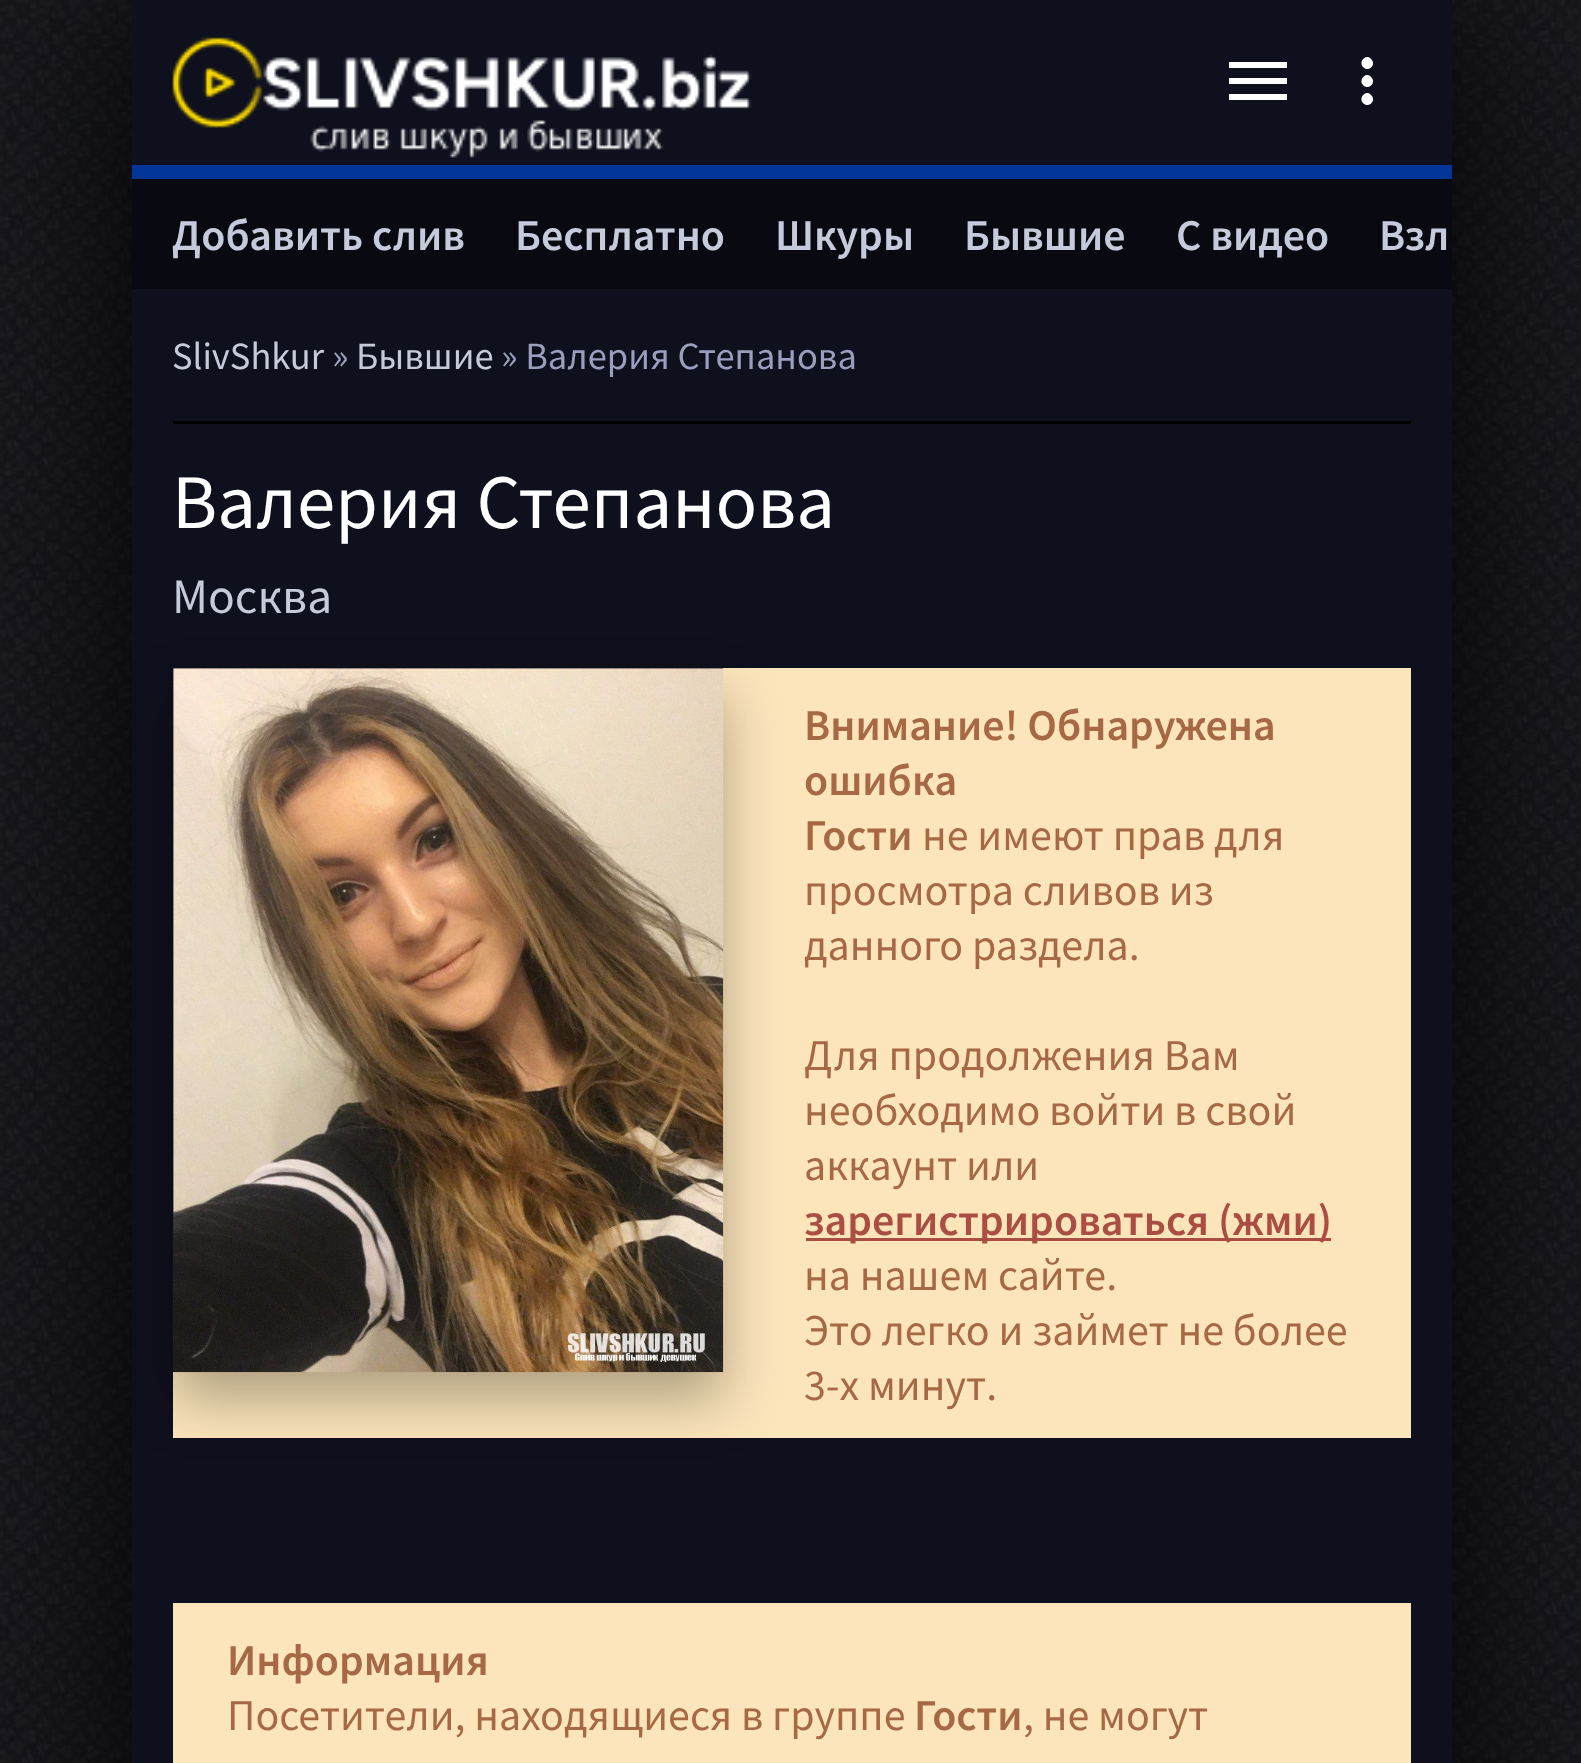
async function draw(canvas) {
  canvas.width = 1581;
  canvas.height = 1763;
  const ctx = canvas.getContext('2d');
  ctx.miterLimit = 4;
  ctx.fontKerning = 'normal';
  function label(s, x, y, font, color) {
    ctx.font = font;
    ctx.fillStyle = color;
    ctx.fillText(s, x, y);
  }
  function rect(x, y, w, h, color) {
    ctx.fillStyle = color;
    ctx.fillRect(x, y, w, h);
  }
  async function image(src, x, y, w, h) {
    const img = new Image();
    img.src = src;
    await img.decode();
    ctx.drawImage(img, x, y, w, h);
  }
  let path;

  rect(0, 0, 1581, 1763, '#fff');
  await image('assets/img1.png', 0, 0, 1581, 1763);
  ctx.fillStyle = '#000000e6';
  ctx.filter = 'blur(82.5px)';
  ctx.beginPath();
  ctx.rect(132, 0, 1320, 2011);
  ctx.fill();
  ctx.filter = 'none';
  rect(132, 0, 1320, 1763, '#0f101d');
  rect(132, 165, 1320, 14, '#003697');
  await image('assets/img2.png', 172, 37, 580, 121);
  ctx.fillStyle = '#fff';
  path = new Path2D('M1229 100V94H1287V100ZM1229 84V78H1287V84ZM1229 62H1287V68H1229Z');
  ctx.fill(path);
  path = new Path2D('M1371 59C1377 64 1369 73 1363 67C1358 62 1366 53 1371 59ZM1371 95C1377 100 1369 109 1363 103C1358 98 1366 89 1371 95ZM1371 77C1377 82 1369 91 1363 85C1358 80 1366 71 1371 77Z');
  ctx.fill(path);
  rect(132, 179, 1320, 110, '#090a11');
  label('Добавить слив', 172, 250, '600 44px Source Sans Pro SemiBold', '#c5cbda');
  label('Бесплатно', 515, 250, '600 44px Source Sans Pro SemiBold', '#c5cbda');
  label('Шкуры', 775, 250, '600 44px Source Sans Pro SemiBold', '#c5cbda');
  label('Бывшие', 964, 250, '600 44px Source Sans Pro SemiBold', '#c5cbda');
  label('С видео', 1176, 250, '600 44px Source Sans Pro SemiBold', '#c5cbda');
  label('Взл', 1379, 250, '600 44px Source Sans Pro SemiBold', '#c5cbda');
  rect(173, 421, 1238, 3, '#000');
  label('SlivShkur', 172, 369, '38.5px Source Sans Pro', '#c5cbda');
  label('»', 332, 369, '38.5px Source Sans Pro', '#999fbc');
  label('Бывшие', 356, 369, '38.5px Source Sans Pro', '#c5cbda');
  label('» Валерия Степанова', 501, 369, '38.5px Source Sans Pro', '#999fbc');
  label('Валерия Степанова', 172, 528, '77px Source Sans Pro', '#fff');
  label('Москва', 172, 613, '49.5px Source Sans Pro', '#c5cbda');
  rect(173, 668, 1238, 770, '#fce5ba');
  rect(806, 1238, 525, 3, '#aa4e43');
  ctx.save();
  ctx.beginPath();
  ctx.rect(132, 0, 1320, 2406);
  ctx.clip();
  ctx.fillStyle = '#0000004d';
  ctx.filter = 'blur(27.5px)';
  ctx.beginPath();
  ctx.rect(173, 696, 550, 704);
  ctx.fill();
  ctx.filter = 'none';
  ctx.restore();
  rect(173, 668, 550, 704, '#222');
  await image('assets/img3.png', 173, 668, 551, 705);
  label('Внимание! Обнаружена', 804, 740, '600 44px Source Sans Pro SemiBold', '#a76846');
  label('ошибка', 804, 795, '600 44px Source Sans Pro SemiBold', '#a76846');
  label('Гости', 804, 850, '600 44px Source Sans Pro SemiBold', '#a76846');
  label('не имеют прав для', 922, 850, '44px Source Sans Pro', '#a76846');
  label('просмотра сливов из', 804, 905, '44px Source Sans Pro', '#a76846');
  label('данного раздела.', 804, 960, '44px Source Sans Pro', '#a76846');
  label('Для продолжения Вам', 804, 1070, '44px Source Sans Pro', '#a76846');
  label('необходимо войти в свой', 804, 1125, '44px Source Sans Pro', '#a76846');
  label('аккаунт или', 804, 1180, '44px Source Sans Pro', '#a76846');
  label('зарегистрироваться (жми)', 804, 1235, '600 44px Source Sans Pro SemiBold', '#aa4e43');
  label('на нашем сайте.', 804, 1290, '44px Source Sans Pro', '#a76846');
  label('Это легко и займет не более', 804, 1345, '44px Source Sans Pro', '#a76846');
  label('3-х минут.', 804, 1400, '44px Source Sans Pro', '#a76846');
  rect(173, 1603, 1238, 160, '#fce5ba');
  label('Информация', 227, 1675, '600 44px Source Sans Pro SemiBold', '#a76846');
  label('Посетители, находящиеся в группе', 227, 1730, '44px Source Sans Pro', '#a76846');
  label('Гости', 914, 1730, '600 44px Source Sans Pro SemiBold', '#a76846');
  label(', не могут', 1023, 1730, '44px Source Sans Pro', '#a76846');
}

draw(document.querySelector('canvas'));
